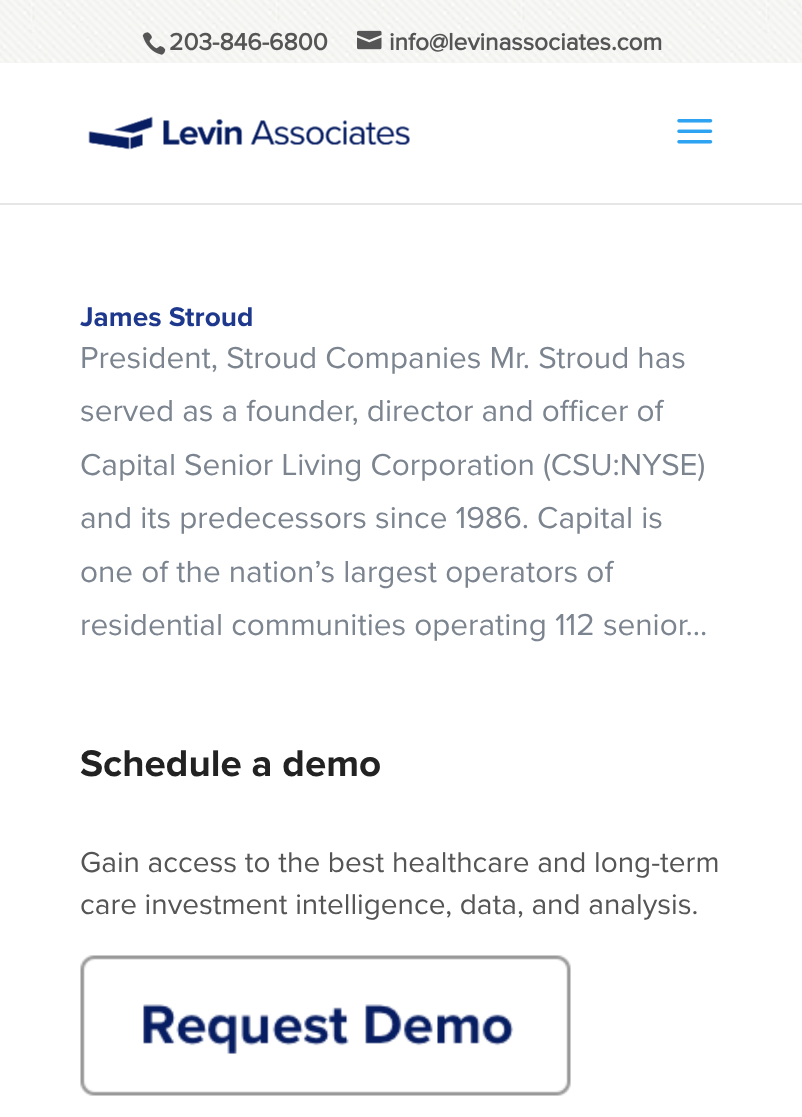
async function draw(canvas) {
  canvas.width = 802;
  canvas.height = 1117;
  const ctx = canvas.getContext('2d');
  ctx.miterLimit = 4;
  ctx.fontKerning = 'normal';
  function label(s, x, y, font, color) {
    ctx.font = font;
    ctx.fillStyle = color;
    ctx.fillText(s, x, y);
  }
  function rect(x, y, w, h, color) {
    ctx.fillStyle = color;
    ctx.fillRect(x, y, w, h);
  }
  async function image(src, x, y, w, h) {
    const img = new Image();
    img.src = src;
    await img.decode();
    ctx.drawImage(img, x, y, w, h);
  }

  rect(0, 0, 802, 1117, '#fff');
  await image('assets/img1.png', 0, 0, 802, 63);
  await image('assets/img2.png', 142, 32, 24, 23);
  label('203-846-6800', 169, 50, 'bold 24.5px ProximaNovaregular', '#555');
  await image('assets/img3.png', 357, 30, 25, 20);
  label('info@levinassociates.com', 389, 50, 'bold 24.5px ProximaNovaregular', '#555');
  rect(0, 203, 802, 2, '#e6e6e6');
  await image('assets/img4.png', 88, 116, 322, 34);
  await image('assets/img5.png', 677, 119, 36, 25);
  label('James Stroud', 80, 326, 'bold 28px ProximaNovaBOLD', '#1d388c');
  label('President, Stroud Companies Mr. Stroud has', 80, 368, '31.5px ProximaNovaregular', '#7b848f');
  label('served as a founder, director and officer of', 80, 421, '31.5px ProximaNovaregular', '#7b848f');
  label('Capital Senior Living Corporation (CSU:NYSE)', 80, 475, '31.5px ProximaNovaregular', '#7b848f');
  label('and its predecessors since 1986. Capital is', 80, 528, '31.5px ProximaNovaregular', '#7b848f');
  label('one of the nation’s largest operators of', 80, 582, '31.5px ProximaNovaregular', '#7b848f');
  label('residential communities operating 112 senior...', 80, 635, '31.5px ProximaNovaregular', '#7b848f');
  label('Schedule a demo', 80, 776, 'bold 38.5px ProximaNovaBOLD', '#222');
  label('Gain access to the best healthcare and long-term', 80, 872, '29.75px ProximaNovaregular', '#555');
  label('care investment intelligence, data, and analysis.', 80, 914, '29.75px ProximaNovaregular', '#555');
  await image('assets/img6.png', 80, 955, 491, 141);
}

draw(document.querySelector('canvas'));
